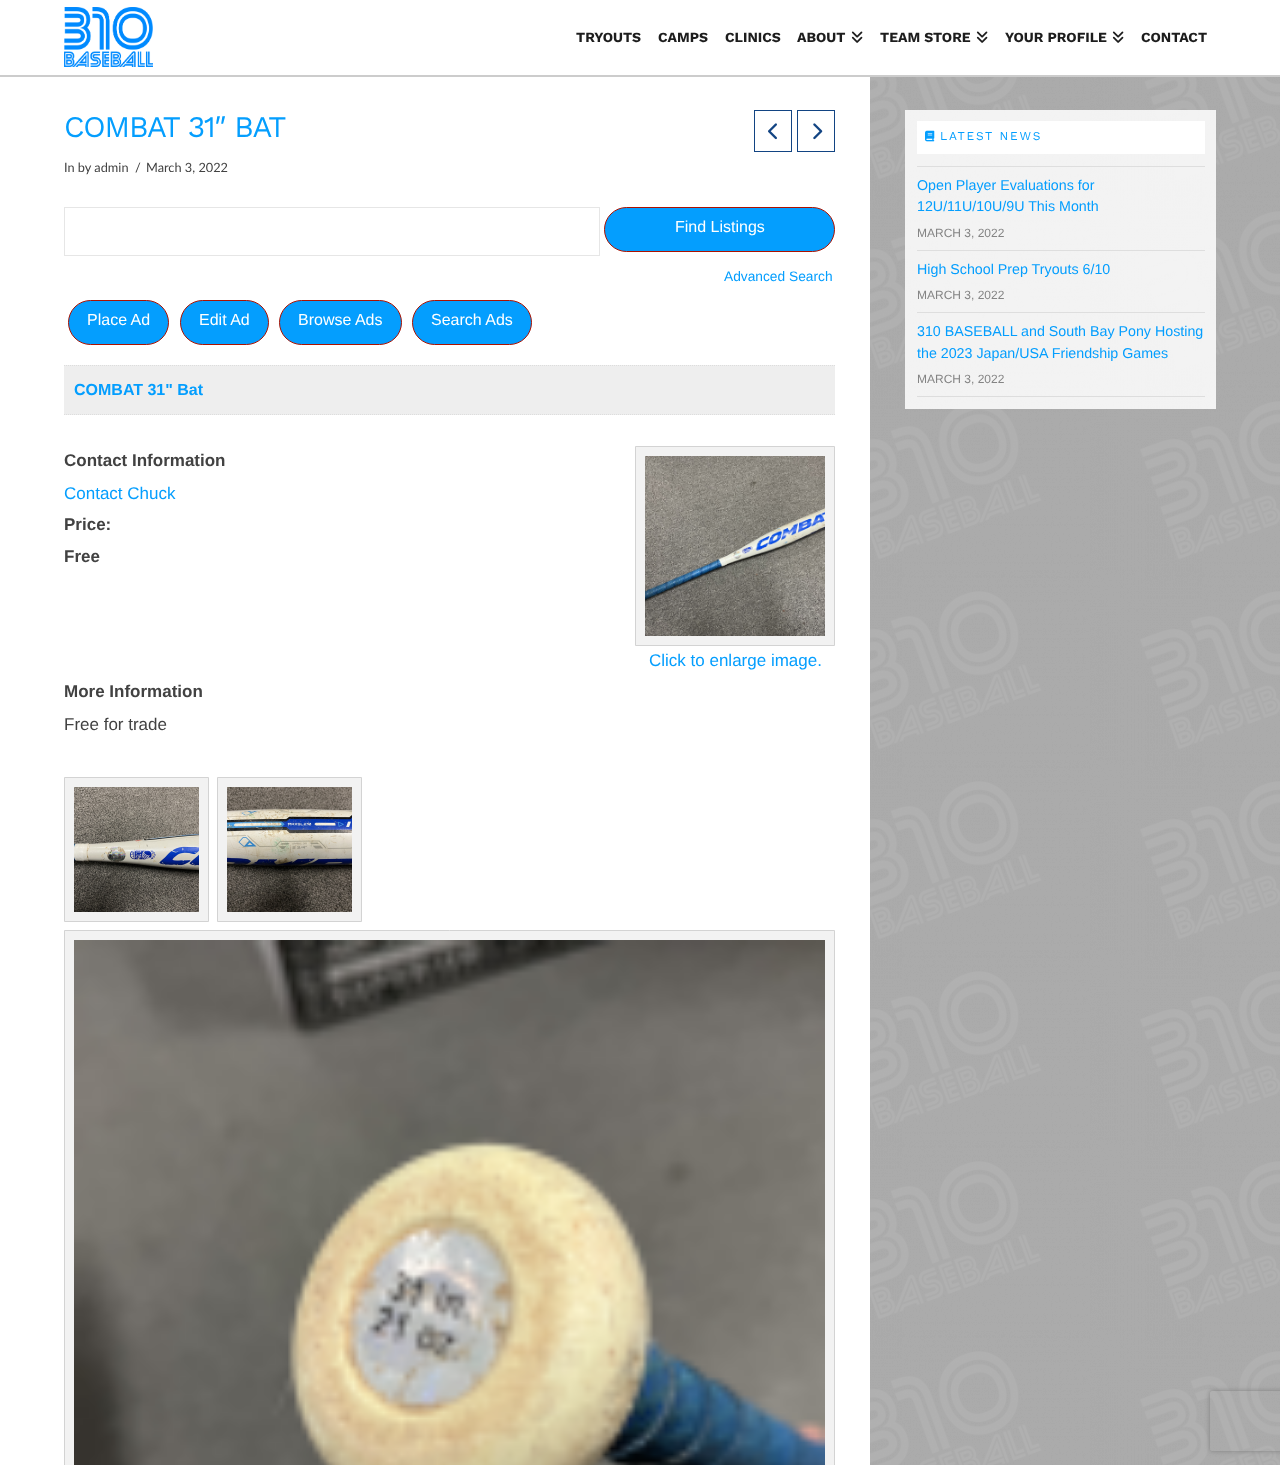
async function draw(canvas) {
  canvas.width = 1280;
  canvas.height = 1465;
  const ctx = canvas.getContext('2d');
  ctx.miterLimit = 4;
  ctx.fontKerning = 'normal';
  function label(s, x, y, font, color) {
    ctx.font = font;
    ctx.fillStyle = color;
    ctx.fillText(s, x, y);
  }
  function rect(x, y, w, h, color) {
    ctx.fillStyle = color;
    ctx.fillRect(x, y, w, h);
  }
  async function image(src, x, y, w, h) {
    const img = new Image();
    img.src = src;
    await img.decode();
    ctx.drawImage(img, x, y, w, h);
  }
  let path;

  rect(0, 0, 1280, 1465, '#ababab');
  await image('assets/img1.png', 870, 77, 410, 1388);
  rect(0, 0, 1280, 75, '#fff');
  rect(0, 75, 1280, 2, '#ccc');
  await image('assets/img2.png', 64, 7, 89, 60);
  label('TRYOUTS', 576, 42, 'bold 14px Work Sans', '#1d1d1d');
  label('CAMPS', 658, 42, 'bold 14px Work Sans', '#1d1d1d');
  label('CLINICS', 725, 42, 'bold 14px Work Sans', '#1d1d1d');
  label('ABOUT', 797, 42, 'bold 14px Work Sans', '#1d1d1d');
  await image('assets/img3.png', 851, 31, 12, 12);
  label('TEAM STORE', 880, 42, 'bold 14px Work Sans', '#1d1d1d');
  await image('assets/img3.png', 976, 31, 12, 12);
  label('YOUR PROFILE', 1005, 42, 'bold 14px Work Sans', '#1d1d1d');
  await image('assets/img3.png', 1112, 31, 12, 12);
  label('CONTACT', 1141, 42, 'bold 14px Work Sans', '#1d1d1d');
  rect(0, 77, 870, 1388, '#fff');
  ctx.letterSpacing = '-1.25px';
  label('COMBAT 31″ BAT', 64, 137, '30px Work Sans', '#049efe');
  ctx.strokeStyle = '#124483';
  ctx.strokeRect(754.5, 110.5, 37, 41);
  await image('assets/img4.png', 768, 123, 9, 17);
  ctx.strokeRect(797.5, 110.5, 37, 41);
  await image('assets/img5.png', 813, 123, 10, 17);
  ctx.letterSpacing = '0px';
  label('In by admin', 64, 172, '12.75px Lato', '#424242');
  label('/', 135, 172, '12.75px Lato', '#424242');
  label('March 3, 2022', 146, 172, '12.75px Lato', '#424242');
  ctx.strokeStyle = '#e6e6e6';
  ctx.strokeRect(64.5, 207.5, 535, 48);
  ctx.fillStyle = '#049efe';
  ctx.beginPath();
  ctx.roundRect(604.5, 207.5, 230, 44, 22);
  ctx.fill();
  ctx.strokeStyle = '#ac1100';
  ctx.stroke();
  label('Find Listings', 675, 232, '16px Liberation Sans', '#fff');
  label('Advanced Search', 724, 281, '13.75px Liberation Sans', '#049efe');
  ctx.beginPath();
  ctx.roundRect(68.5, 300.5, 100, 44, 22);
  ctx.fill();
  ctx.stroke();
  label('Place Ad', 87, 325, '16px Liberation Sans', '#fff');
  ctx.fillStyle = '#049efe';
  ctx.beginPath();
  ctx.roundRect(180.5, 300.5, 88, 44, 22);
  ctx.fill();
  ctx.stroke();
  label('Edit Ad', 199, 325, '16px Liberation Sans', '#fff');
  ctx.fillStyle = '#049efe';
  ctx.beginPath();
  ctx.roundRect(279.5, 300.5, 122, 44, 22);
  ctx.fill();
  ctx.stroke();
  label('Browse Ads', 298, 325, '16px Liberation Sans', '#fff');
  ctx.fillStyle = '#049efe';
  ctx.beginPath();
  ctx.roundRect(412.5, 300.5, 119, 44, 22);
  ctx.fill();
  ctx.stroke();
  label('Search Ads', 431, 325, '16px Liberation Sans', '#fff');
  rect(64, 365, 771, 50, '#eee');
  path = new Path2D('M64 365.5H835');
  ctx.strokeStyle = '#ddd';
  ctx.setLineDash([1, 1]);
  ctx.stroke(path);
  path = new Path2D('M64 414.5H835');
  ctx.stroke(path);
  label('COMBAT 31" Bat', 74, 395, 'bold 16px Liberation Sans', '#049efe');
  label('Contact Information', 64, 466, 'bold 17px Liberation Sans', '#424242');
  label('Contact Chuck', 64, 499, '17px Liberation Sans', '#049efe');
  ctx.fillStyle = '#f2f2f2';
  ctx.beginPath();
  ctx.rect(635.5, 446.5, 199, 199);
  ctx.fill();
  ctx.strokeStyle = '#d3d3d3';
  ctx.setLineDash([]);
  ctx.stroke();
  await image('assets/img6.png', 645, 456, 180, 180);
  label('Click to enlarge image.', 649, 666, '17px Liberation Sans', '#049efe');
  label('Price:', 64, 530, 'bold 17px Liberation Sans', '#424242');
  label('Free', 64, 562, 'bold 17px Liberation Sans', '#424242');
  label('More Information', 64, 697, 'bold 17px Liberation Sans', '#424242');
  label('Free for trade', 64, 730, '17px Liberation Sans', '#424242');
  ctx.fillStyle = '#f2f2f2';
  ctx.beginPath();
  ctx.rect(64.5, 777.5, 144, 144);
  ctx.fill();
  ctx.stroke();
  await image('assets/img7.png', 74, 787, 125, 125);
  ctx.beginPath();
  ctx.rect(217.5, 777.5, 144, 144);
  ctx.fill();
  ctx.stroke();
  await image('assets/img8.png', 227, 787, 125, 125);
  ctx.beginPath();
  ctx.rect(64.5, 930.5, 770, 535);
  ctx.fill();
  ctx.stroke();
  await image('assets/img9.png', 74, 940, 751, 525);
  rect(905, 110, 311, 299, '#ffffffd9');
  rect(917, 121, 288, 33, '#fff');
  await image('assets/img10.png', 925, 130, 10, 12);
  ctx.letterSpacing = '1.75px';
  label('LATEST NEWS', 940, 140, '12px Work Sans', '#049efe');
  rect(917, 166, 288, 1, '#dedede');
  ctx.letterSpacing = '0px';
  label('Open Player Evaluations for', 917, 190, '14.25px Liberation Sans', '#049efe');
  label('12U/11U/10U/9U This Month', 917, 211, '14.25px Liberation Sans', '#049efe');
  label('MARCH 3, 2022', 917, 237, '12px Liberation Sans', '#848484');
  rect(917, 250, 288, 1, '#dedede');
  label('High School Prep Tryouts 6/10', 917, 274, '14.25px Liberation Sans', '#049efe');
  label('MARCH 3, 2022', 917, 299, '12px Liberation Sans', '#848484');
  rect(917, 312, 288, 1, '#dedede');
  rect(917, 396, 288, 1, '#ddd');
  label('310 BASEBALL and South Bay Pony Hosting', 917, 336, '14.25px Liberation Sans', '#049efe');
  label('the 2023 Japan/USA Friendship Games', 917, 358, '14.25px Liberation Sans', '#049efe');
  label('MARCH 3, 2022', 917, 383, '12px Liberation Sans', '#848484');
  ctx.save();
  path = new Path2D('M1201 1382H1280V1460H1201ZM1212 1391H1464C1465 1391 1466 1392 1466 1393V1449C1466 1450 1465 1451 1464 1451H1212C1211 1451 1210 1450 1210 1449V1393C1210 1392 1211 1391 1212 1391Z');
  ctx.clip(path, 'evenodd');
  ctx.fillStyle = '#808080';
  ctx.filter = 'blur(2.5px)';
  ctx.beginPath();
  ctx.roundRect(1210, 1391, 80, 60, 2);
  ctx.fill();
  ctx.filter = 'none';
  ctx.restore();
}

draw(document.querySelector('canvas'));
